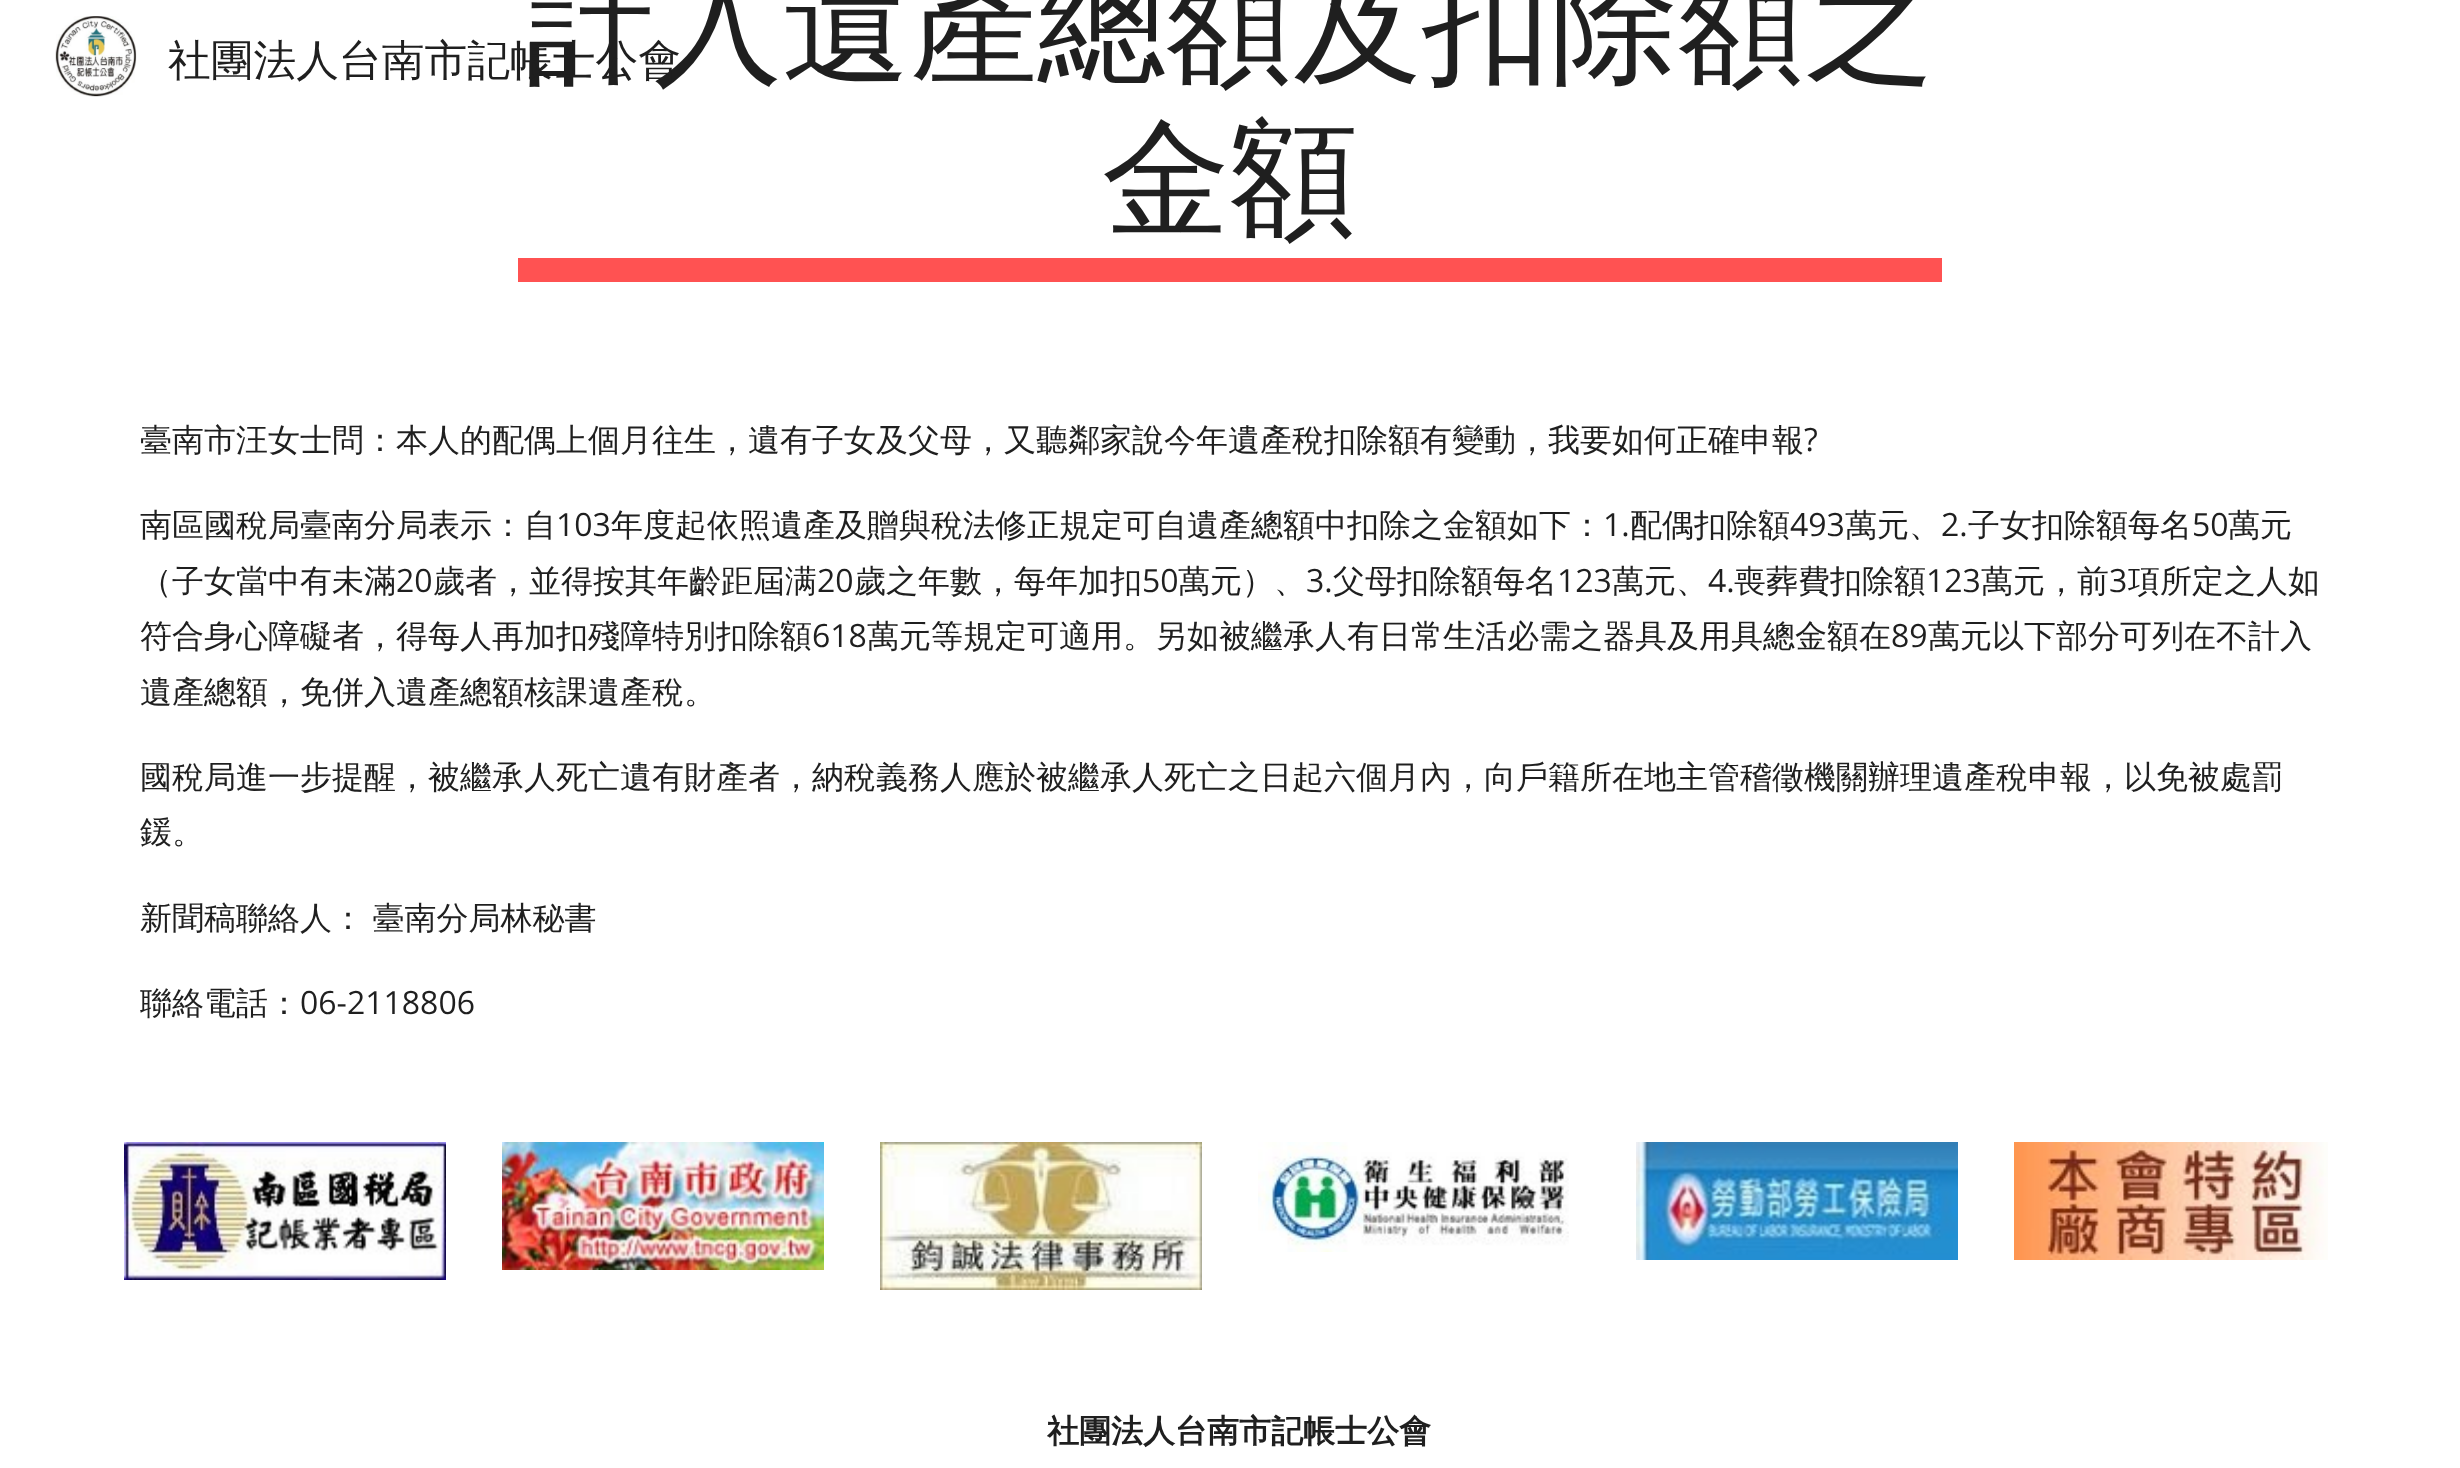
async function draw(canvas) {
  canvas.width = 2460;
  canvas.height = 1468;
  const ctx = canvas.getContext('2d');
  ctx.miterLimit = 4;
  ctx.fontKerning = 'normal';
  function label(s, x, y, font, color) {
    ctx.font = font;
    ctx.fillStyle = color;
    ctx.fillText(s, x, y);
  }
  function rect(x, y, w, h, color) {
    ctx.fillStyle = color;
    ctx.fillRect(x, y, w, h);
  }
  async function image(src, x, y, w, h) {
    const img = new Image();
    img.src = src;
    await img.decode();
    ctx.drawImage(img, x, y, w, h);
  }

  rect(0, 0, 2460, 1468, '#fff');
  label('計入遺產總額及扣除額之', 526, 70, '500 128px WenQuanYi Zen Hei', '#1f1f1f');
  label('金額', 1102, 223, '500 128px WenQuanYi Zen Hei', '#1f1f1f');
  rect(518, 258, 1424, 24, '#ff5252');
  label('臺南市汪女士問：本人的配偶上個月往生，遺有子女及父母，又聽鄰家說今年遺產稅扣除額有變動，我要如何正確申報', 140, 451, '500 32px WenQuanYi Zen Hei', '#1f1f1f');
  label('?', 1804, 451, '32px Open Sans', '#1f1f1f');
  label('南區國稅局臺南分局表示：自', 140, 536, '500 32px WenQuanYi Zen Hei', '#1f1f1f');
  label('103', 556, 536, '32px Open Sans', '#1f1f1f');
  label('年度起依照遺產及贈與稅法修正規定可自遺產總額中扣除之金額如下：', 611, 536, '500 32px WenQuanYi Zen Hei', '#1f1f1f');
  label('1.', 1603, 536, '32px Open Sans', '#1f1f1f');
  label('配偶扣除額', 1630, 536, '500 32px WenQuanYi Zen Hei', '#1f1f1f');
  label('493', 1790, 536, '32px Open Sans', '#1f1f1f');
  label('萬元、', 1845, 536, '500 32px WenQuanYi Zen Hei', '#1f1f1f');
  label('2.', 1941, 536, '32px Open Sans', '#1f1f1f');
  label('子女扣除額每名', 1968, 536, '500 32px WenQuanYi Zen Hei', '#1f1f1f');
  label('50', 2192, 536, '32px Open Sans', '#1f1f1f');
  label('萬元', 2228, 536, '500 32px WenQuanYi Zen Hei', '#1f1f1f');
  label('（子女當中有未滿', 140, 592, '500 32px WenQuanYi Zen Hei', '#1f1f1f');
  label('20', 396, 592, '32px Open Sans', '#1f1f1f');
  label('歲者，並得按其年齡距屆满', 433, 592, '500 32px WenQuanYi Zen Hei', '#1f1f1f');
  label('20', 817, 592, '32px Open Sans', '#1f1f1f');
  label('歲之年數，每年加扣', 854, 592, '500 32px WenQuanYi Zen Hei', '#1f1f1f');
  label('50', 1142, 592, '32px Open Sans', '#1f1f1f');
  label('萬元）、', 1178, 592, '500 32px WenQuanYi Zen Hei', '#1f1f1f');
  label('3.', 1306, 592, '32px Open Sans', '#1f1f1f');
  label('父母扣除額每名', 1333, 592, '500 32px WenQuanYi Zen Hei', '#1f1f1f');
  label('123', 1557, 592, '32px Open Sans', '#1f1f1f');
  label('萬元、', 1612, 592, '500 32px WenQuanYi Zen Hei', '#1f1f1f');
  label('4.', 1708, 592, '32px Open Sans', '#1f1f1f');
  label('喪葬費扣除額', 1734, 592, '500 32px WenQuanYi Zen Hei', '#1f1f1f');
  label('123', 1926, 592, '32px Open Sans', '#1f1f1f');
  label('萬元，前', 1981, 592, '500 32px WenQuanYi Zen Hei', '#1f1f1f');
  label('3', 2109, 592, '32px Open Sans', '#1f1f1f');
  label('項所定之人如', 2128, 592, '500 32px WenQuanYi Zen Hei', '#1f1f1f');
  label('符合身心障礙者，得每人再加扣殘障特別扣除額', 140, 647, '500 32px WenQuanYi Zen Hei', '#1f1f1f');
  label('618', 812, 647, '32px Open Sans', '#1f1f1f');
  label('萬元等規定可適用。另如被繼承人有日常生活必需之器具及用具總金額在', 867, 647, '500 32px WenQuanYi Zen Hei', '#1f1f1f');
  label('89', 1891, 647, '32px Open Sans', '#1f1f1f');
  label('萬元以下部分可列在不計入', 1928, 647, '500 32px WenQuanYi Zen Hei', '#1f1f1f');
  label('遺產總額，免併入遺產總額核課遺產稅。', 140, 703, '500 32px WenQuanYi Zen Hei', '#1f1f1f');
  label('國稅局進一步提醒，被繼承人死亡遺有財產者，納稅義務人應於被繼承人死亡之日起六個月內，向戶籍所在地主管稽徵機關辦理遺產稅申報，以免被處罰', 140, 788, '500 32px WenQuanYi Zen Hei', '#1f1f1f');
  label('鍰。', 140, 843, '500 32px WenQuanYi Zen Hei', '#1f1f1f');
  ctx.wordSpacing = '-1px';
  label('新聞稿聯絡人： 臺南分局林秘書', 140, 929, '500 32px WenQuanYi Zen Hei', '#1f1f1f');
  ctx.wordSpacing = '0px';
  label('聯絡電話：', 140, 1014, '500 32px WenQuanYi Zen Hei', '#1f1f1f');
  label('06-2118806', 300, 1014, '32px Open Sans', '#1f1f1f');
  await image('assets/img1.png', 55, 16, 82, 81);
  label('社團法人台南市記帳士公會', 168, 75, '500 42.75px WenQuanYi Zen Hei', '#1f1f1f');
  await image('assets/img2.png', 124, 1142, 322, 138);
  await image('assets/img3.png', 502, 1142, 322, 128);
  await image('assets/img4.png', 880, 1142, 322, 148);
  await image('assets/img5.png', 1258, 1142, 311, 110);
  await image('assets/img6.png', 1636, 1142, 322, 118);
  await image('assets/img7.png', 2014, 1142, 314, 118);
  label('社團法人台南市記帳士公會', 1047, 1442, 'bold 32px WenQuanYi Zen Hei', '#1f1f1f');
}

draw(document.querySelector('canvas'));
